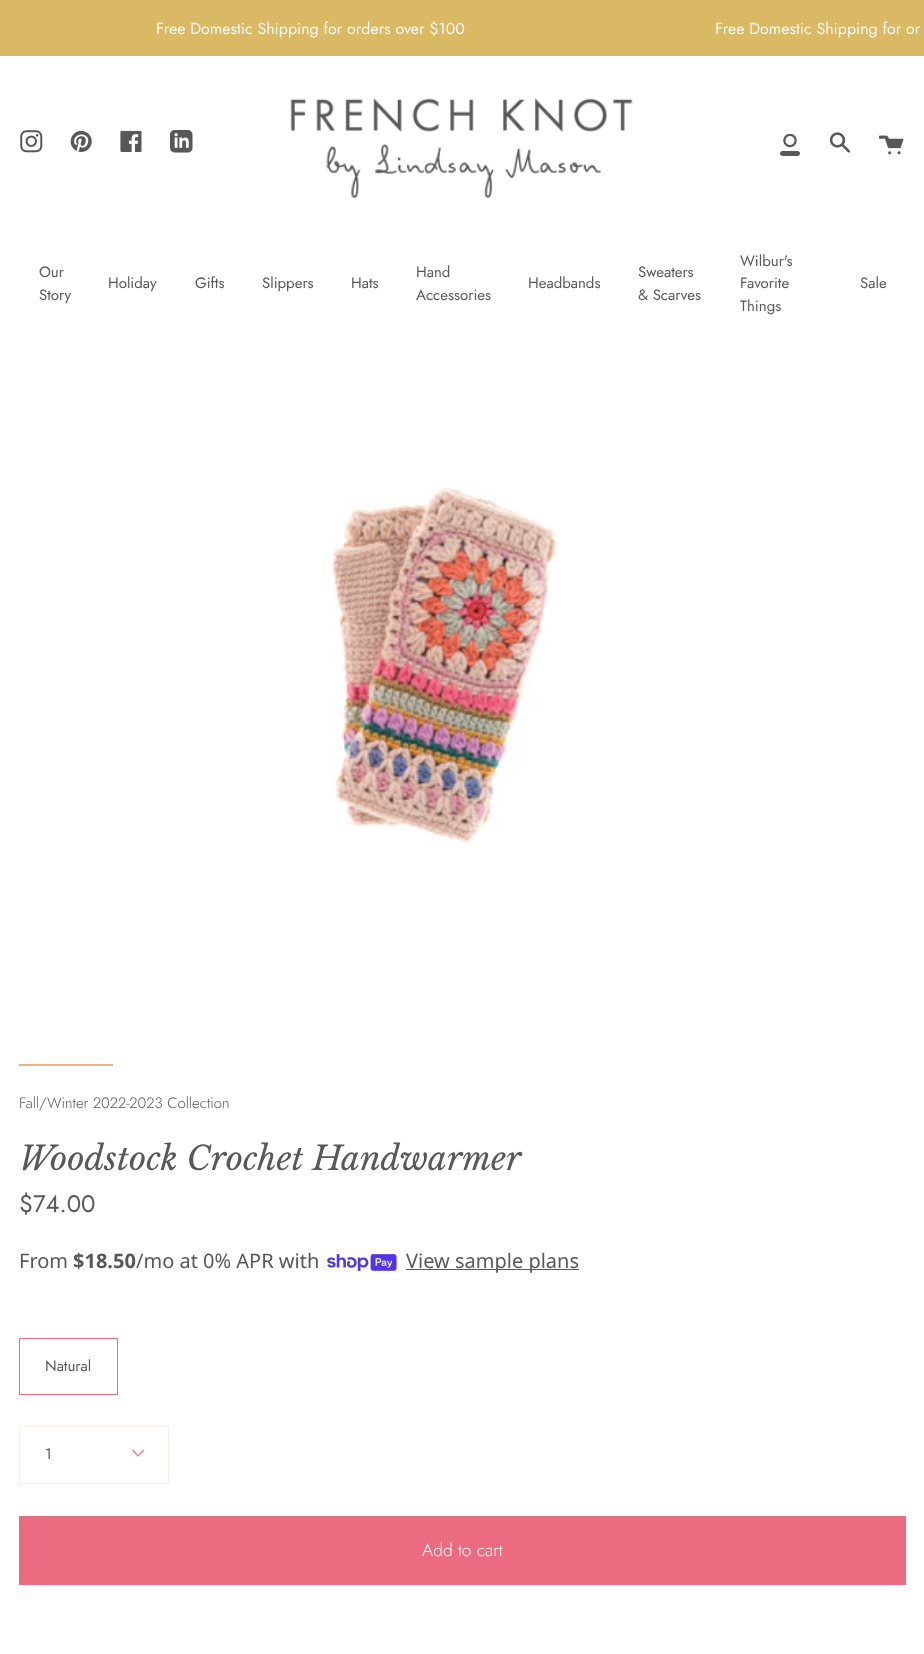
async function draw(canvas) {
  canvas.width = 924;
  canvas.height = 1654;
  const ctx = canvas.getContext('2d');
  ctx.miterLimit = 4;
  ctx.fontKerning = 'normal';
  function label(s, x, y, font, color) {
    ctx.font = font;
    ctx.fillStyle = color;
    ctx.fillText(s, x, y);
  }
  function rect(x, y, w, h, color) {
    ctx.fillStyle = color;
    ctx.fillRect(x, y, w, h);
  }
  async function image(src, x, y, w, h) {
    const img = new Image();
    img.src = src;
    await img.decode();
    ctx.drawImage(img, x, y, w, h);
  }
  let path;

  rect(0, 0, 924, 1654, '#fff');
  rect(0, 0, 924, 56, '#dab965');
  label('Free Domestic Shipping for orders over $100', 156, 34, '16px Jost', '#f7f7f7');
  label('Free Domestic Shipping for or', 715, 34, '16px Jost', '#f7f7f7');
  await image('assets/img1.png', 20, 130, 23, 23);
  await image('assets/img2.png', 70, 130, 22, 22);
  await image('assets/img3.png', 120, 130, 22, 22);
  await image('assets/img4.png', 170, 130, 23, 23);
  await image('assets/img5.png', 290, 98, 343, 101);
  await image('assets/img6.png', 780, 134, 20, 22);
  await image('assets/img7.png', 829, 132, 22, 21);
  await image('assets/img8.png', 879, 135, 25, 20);
  label('Our', 39, 277, '15px Jost', '#585858');
  label('Story', 39, 300, '15px Jost', '#585858');
  label('Holiday', 108, 288, '15px Jost', '#585858');
  label('Gifts', 195, 288, '15px Jost', '#585858');
  label('Slippers', 262, 288, '15px Jost', '#585858');
  label('Hats', 351, 288, '15px Jost', '#585858');
  label('Hand', 416, 277, '15px Jost', '#585858');
  label('Accessories', 416, 300, '15px Jost', '#585858');
  label('Headbands', 528, 288, '15px Jost', '#585858');
  label('Sweaters', 638, 277, '15px Jost', '#585858');
  label('& Scarves', 638, 300, '15px Jost', '#585858');
  label('Wilbur\'s', 740, 266, '15px Jost', '#585858');
  label('Favorite', 740, 288, '15px Jost', '#585858');
  label('Things', 740, 311, '15px Jost', '#585858');
  label('Sale', 860, 288, '15px Jost', '#585858');
  await image('assets/img9.png', 332, 487, 226, 356);
  rect(19, 1064, 94, 2, '#efb188');
  label('Fall/Winter 2022-2023 Collection', 19, 1108, '300 15px Jost', '#585858');
  label('Woodstock Crochet Handwarmer', 19, 1170, 'italic 33px Libre Baskerville', '#585858');
  label('$74.00', 19, 1212, '24px Jost', '#585858');
  label('From', 19, 1268, '20px Noto Sans', '#585858');
  label('$18.50', 73, 1268, 'bold 20px Noto Sans', '#585858');
  label('/mo at 0% APR with', 136, 1268, '20px Noto Sans', '#585858');
  await image('assets/img10.png', 327, 1254, 70, 17);
  rect(406, 1269, 173, 1, '#585858');
  label('View sample plans', 406, 1268, '20px Noto Sans', '#585858');
  ctx.strokeStyle = '#eb6c80';
  ctx.strokeRect(19.5, 1338.5, 98, 56);
  label('Natural', 45, 1371, '15px Jost', '#585858');
  ctx.strokeStyle = '#fbece2';
  ctx.strokeRect(19.5, 1426.5, 149, 57);
  label('1', 45, 1459, '15px Jost', '#585858');
  ctx.fillStyle = '#eb6c80';
  path = new Path2D('M137 1456L143.5 1449.5L144.5 1450.5L138 1456.5Z');
  ctx.fill(path);
  path = new Path2D('M132 1450.5L133 1449.5L139 1456L138 1456.5Z');
  ctx.fill(path);
  rect(19, 1516, 887, 69, '#eb6c80');
  label('Add to cart', 422, 1556, '300 17.5px Jost', '#fff');
}

draw(document.querySelector('canvas'));
